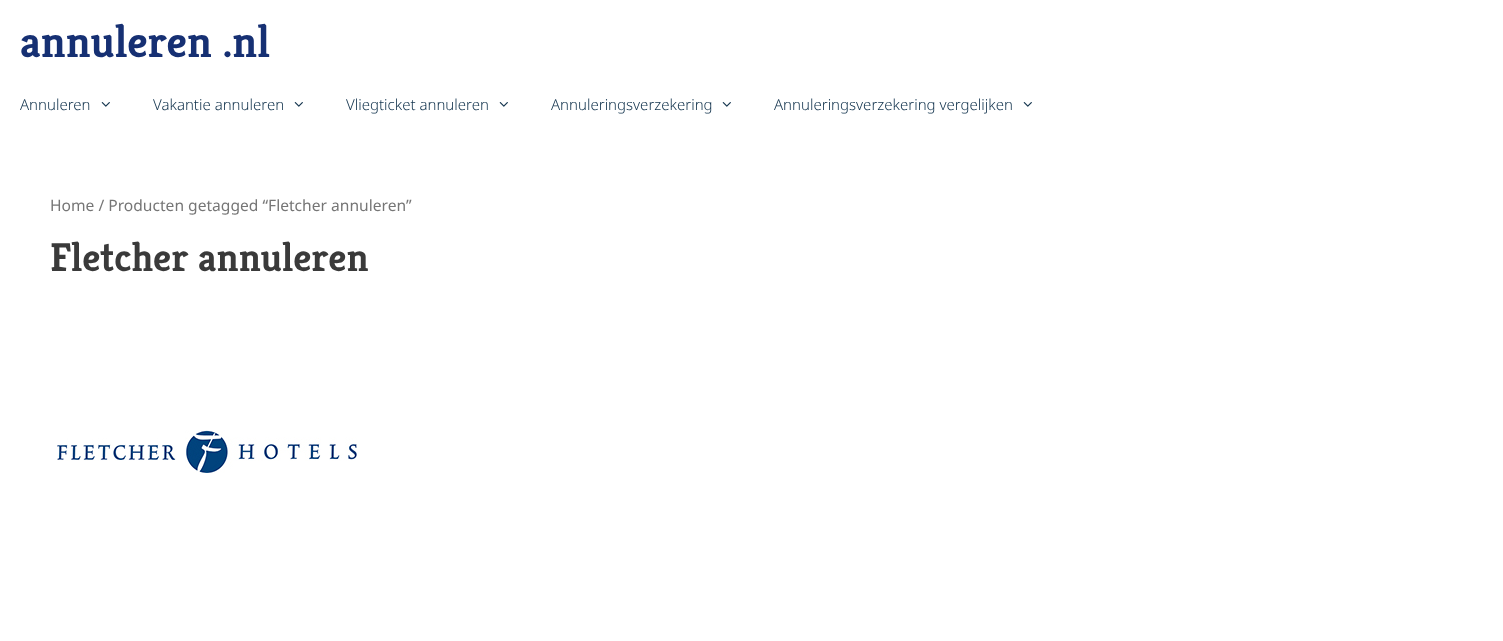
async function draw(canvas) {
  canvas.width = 1503;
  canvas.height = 641;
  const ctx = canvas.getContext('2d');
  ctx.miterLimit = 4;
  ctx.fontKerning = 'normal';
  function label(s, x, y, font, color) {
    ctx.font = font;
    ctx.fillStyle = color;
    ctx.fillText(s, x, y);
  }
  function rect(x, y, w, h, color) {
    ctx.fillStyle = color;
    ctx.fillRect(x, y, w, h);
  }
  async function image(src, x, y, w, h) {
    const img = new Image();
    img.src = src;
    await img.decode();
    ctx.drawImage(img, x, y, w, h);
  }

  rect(0, 0, 1503, 641, '#fff');
  label('annuleren .nl', 20, 57, 'bold 45px Kreon', '#163073');
  label('Annuleren', 20, 110, '300 15px Noto Sans', '#12334d');
  await image('assets/img1.png', 101, 102, 9, 5);
  label('Vakantie annuleren', 153, 110, '300 15px Noto Sans', '#12334d');
  await image('assets/img1.png', 294, 102, 9, 5);
  label('Vliegticket annuleren', 346, 110, '300 15px Noto Sans', '#12334d');
  await image('assets/img1.png', 499, 102, 9, 5);
  label('Annuleringsverzekering', 551, 110, '300 15px Noto Sans', '#12334d');
  await image('assets/img1.png', 722, 102, 9, 5);
  label('Annuleringsverzekering vergelijken', 774, 110, '300 15px Noto Sans', '#12334d');
  await image('assets/img1.png', 1023, 102, 9, 5);
  label('Home / Producten getagged “Fletcher annuleren”', 50, 211, '15.6px Noto Sans', '#767676');
  label('Fletcher annuleren', 50, 271, 'bold 40px Kreon', '#3a3a3a');
  await image('assets/img2.png', 57, 430, 300, 43);
}

draw(document.querySelector('canvas'));
